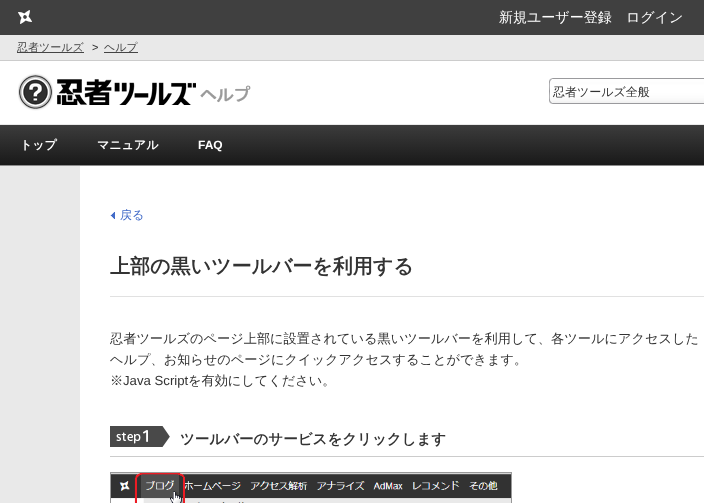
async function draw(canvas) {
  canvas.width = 704;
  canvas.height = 503;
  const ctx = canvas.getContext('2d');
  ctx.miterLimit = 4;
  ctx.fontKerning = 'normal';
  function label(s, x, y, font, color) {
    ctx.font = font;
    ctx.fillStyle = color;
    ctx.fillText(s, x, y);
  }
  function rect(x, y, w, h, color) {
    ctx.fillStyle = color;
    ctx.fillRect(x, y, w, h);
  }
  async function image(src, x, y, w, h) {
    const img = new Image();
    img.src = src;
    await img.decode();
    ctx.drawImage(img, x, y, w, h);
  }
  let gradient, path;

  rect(0, 0, 704, 503, '#e9e9e9');
  rect(0, 0, 704, 35, '#404040');
  label('#', 18, 22, '14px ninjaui', '#fff');
  label('新規ユーザー登録', 499, 22, '500 14px WenQuanYi Zen Hei', '#fff');
  label('ログイン', 626, 22, '500 14px WenQuanYi Zen Hei', '#fff');
  rect(17, 52, 67, 1, '#444');
  label('忍者ツールズ', 17, 51, '500 11px WenQuanYi Zen Hei', '#444');
  label('>', 92, 51, '11px Liberation Sans', '#333');
  rect(104, 52, 34, 1, '#444');
  label('ヘルプ', 104, 51, '500 11px WenQuanYi Zen Hei', '#444');
  rect(0, 61, 704, 63, '#fff');
  rect(0, 60, 704, 1, '#ccc');
  await image('assets/img1.png', 18, 73, 35, 38);
  await image('assets/img2.png', 57, 79, 139, 26);
  await image('assets/img3.png', 200, 85, 51, 18);
  await image('assets/img4.png', 549, 78, 155, 26);
  ctx.fillStyle = '#9a9a9d';
  path = new Path2D('M553 78L550 79L551 80L552 79H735L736 78Z');
  ctx.fill(path);
  path = new Path2D('M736 104L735 103H552L551 102L550 103L553 104Z');
  ctx.fill(path);
  path = new Path2D('M549 82V100C549 101 549.5 102 550 103L551 102C549 100.5 550 93 550 91C550 89 549 81.5 551 80L550 79C549.5 80 549 81 549 82Z');
  ctx.fill(path);
  label('忍者ツールズ全般', 553, 96, '500 12px WenQuanYi Zen Hei', '#333');
  gradient = ctx.createLinearGradient(0, 165, 0, 125);
  gradient.addColorStop(0, '#191919');
  gradient.addColorStop(1, '#3c3c3c');
  ctx.fillStyle = gradient;
  ctx.fillRect(0, 125, 704, 40);
  rect(0, 165, 704, 1, '#8c8c8c');
  label('トップ', 20, 149, 'bold 12px WenQuanYi Zen Hei', '#fff');
  label('マニュアル', 97, 149, 'bold 12px WenQuanYi Zen Hei', '#fff');
  label('FAQ', 198, 149, 'bold 12px Liberation Sans', '#fff');
  rect(80, 166, 624, 337, '#fff');
  await image('assets/img5.png', 110, 212, 5, 7);
  label('戻る', 120, 219, '500 12px WenQuanYi Zen Hei', '#426bc8');
  label('上部の黒いツールバーを利用する', 110, 273, 'bold 20px WenQuanYi Zen Hei', '#333');
  rect(110, 296, 594, 1, '#e1e1e1');
  label('忍者ツールズのページ上部に設置されている黒いツールバーを利用して、各ツールにアクセスした', 110, 343, '500 13.2px WenQuanYi Zen Hei', '#333');
  label('ヘルプ、お知らせのページにクイックアクセスすることができます。', 110, 364, '500 13.2px WenQuanYi Zen Hei', '#333');
  label('※', 110, 385, '500 13.2px WenQuanYi Zen Hei', '#333');
  label('Java Script', 123, 385, '13.2px Liberation Sans', '#333');
  label('を有効にしてください。', 188, 385, '500 13.2px WenQuanYi Zen Hei', '#333');
  await image('assets/img6.png', 110, 426, 60, 21);
  rect(110, 456, 594, 1, '#ccc');
  label('ツールバーのサービスをクリックします', 180, 444, 'bold 14.5px WenQuanYi Zen Hei', '#333');
  ctx.strokeStyle = '#999';
  ctx.strokeRect(110.5, 472.5, 401, 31);
  await image('assets/img7.png', 111, 473, 400, 30);
}

draw(document.querySelector('canvas'));
